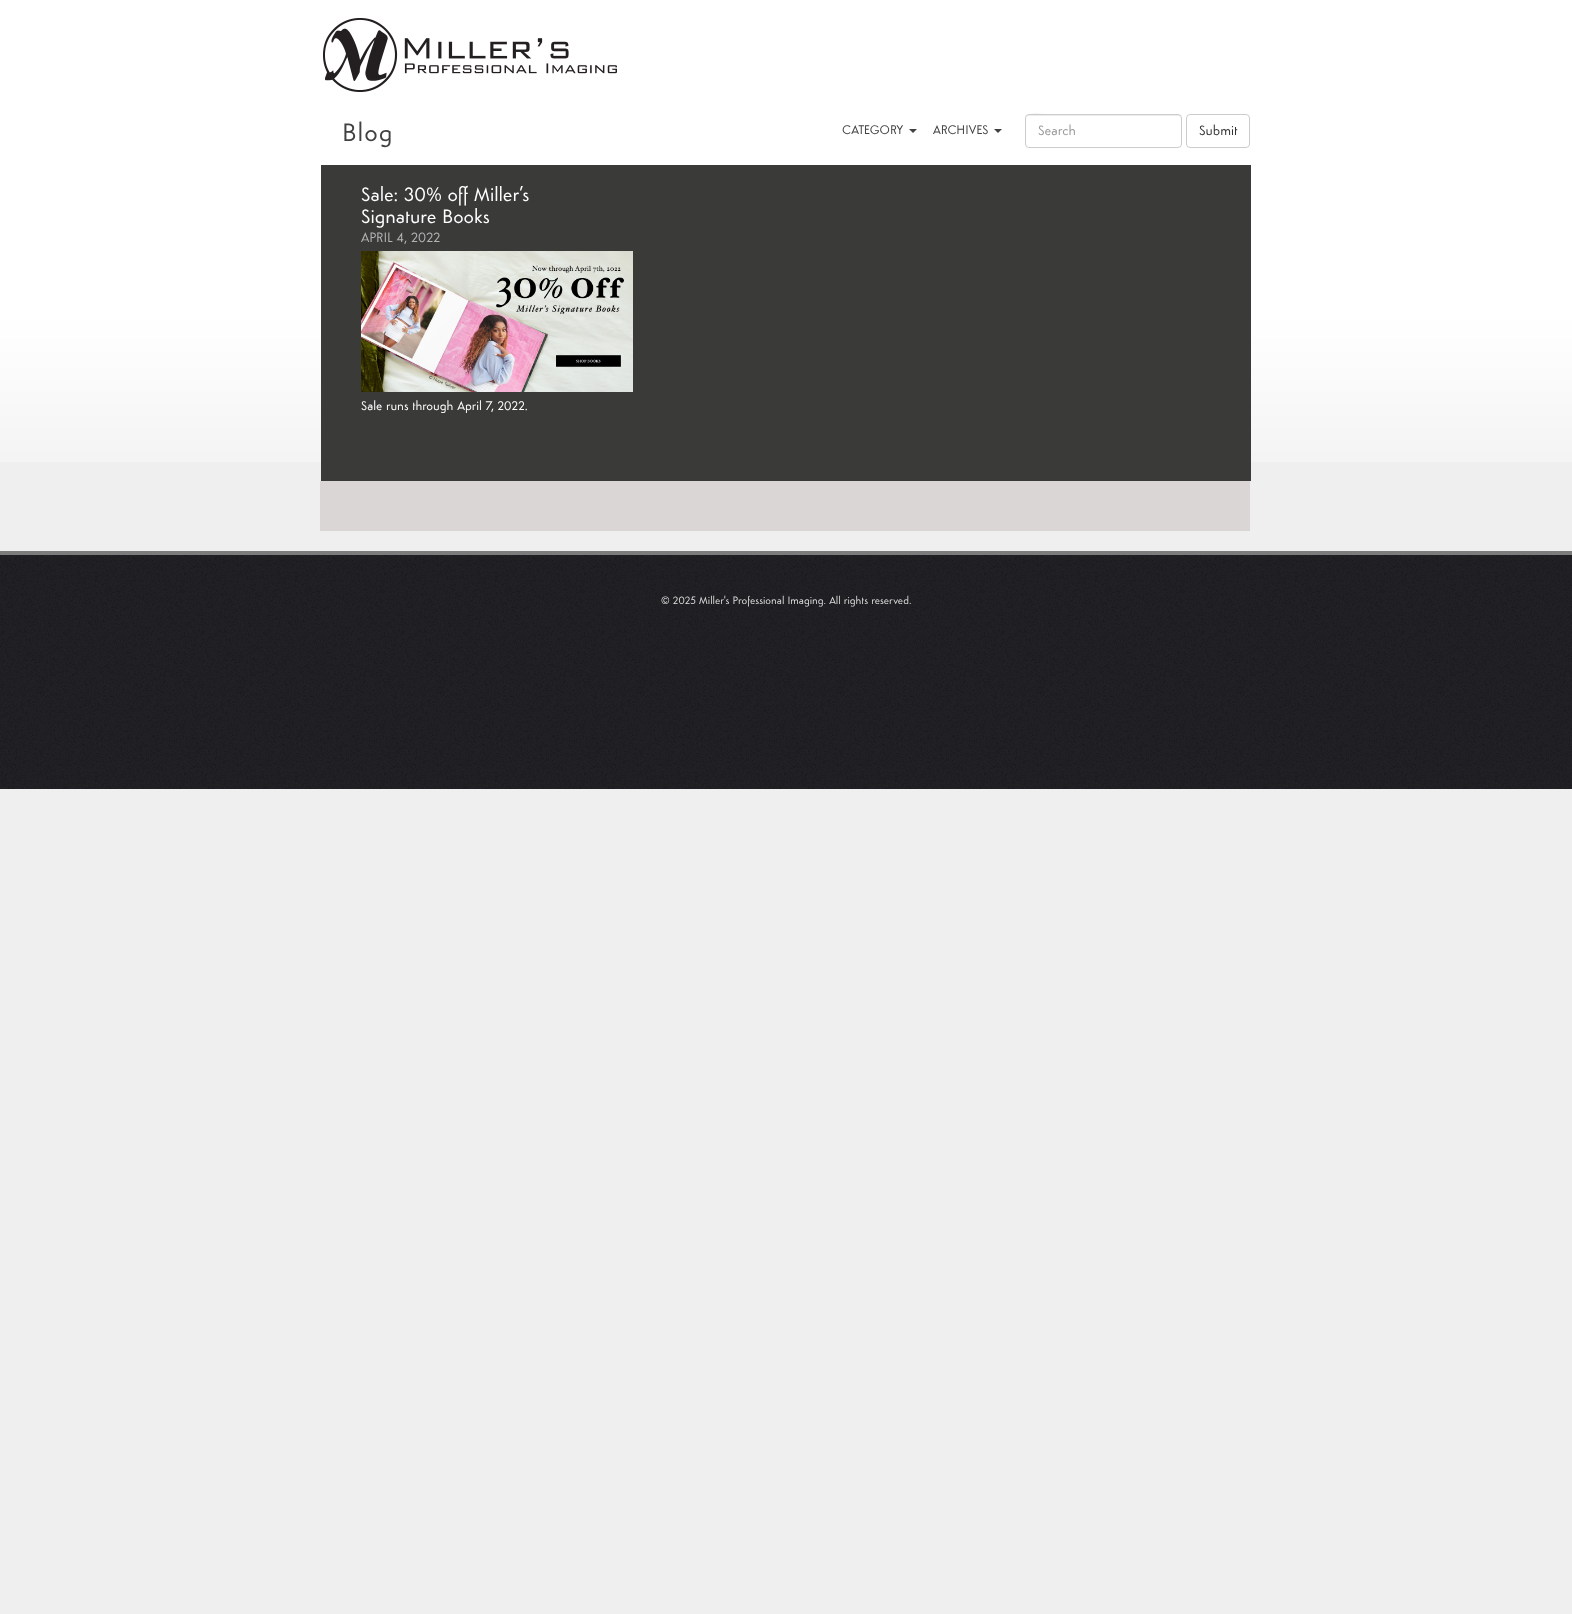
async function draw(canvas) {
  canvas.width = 1572;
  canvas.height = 1614;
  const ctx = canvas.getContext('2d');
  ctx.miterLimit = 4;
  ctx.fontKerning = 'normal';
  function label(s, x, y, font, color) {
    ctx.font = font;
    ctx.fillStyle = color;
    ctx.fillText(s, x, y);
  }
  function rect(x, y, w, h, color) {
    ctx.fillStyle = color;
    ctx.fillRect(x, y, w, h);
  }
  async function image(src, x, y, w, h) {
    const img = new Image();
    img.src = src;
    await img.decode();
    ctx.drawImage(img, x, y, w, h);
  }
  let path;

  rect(0, 0, 1572, 1614, '#efefef');
  await image('assets/img1.png', 0, 0, 1572, 462);
  await image('assets/img2.png', 323, 18, 294, 74);
  ctx.letterSpacing = '1px';
  label('Blog', 342, 141, '26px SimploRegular', '#414141');
  ctx.letterSpacing = '0px';
  label('CATEGORY', 842, 134, '13px SimploRegular', '#414141');
  path = new Path2D('M909 129H917L913 133Z');
  ctx.fill(path);
  label('ARCHIVES', 933, 134, '13px SimploRegular', '#414141');
  path = new Path2D('M994 129H1002L998 133Z');
  ctx.fill(path);
  ctx.fillStyle = '#ececec';
  path = new Path2D('M1029 116H1178C1180 116 1181 117 1181 119C1181 117 1181 116 1179 115H1054C1046 115 1026 110 1026 119C1026 117 1027 116 1029 116Z');
  ctx.fill(path);
  ctx.beginPath();
  ctx.roundRect(1025.5, 114.5, 156, 33, 3.5);
  ctx.strokeStyle = '#ccc';
  ctx.stroke();
  label('Search', 1038, 135, '14px SimploRegular', '#999');
  ctx.beginPath();
  ctx.roundRect(1186.5, 114.5, 63, 33, 3.5);
  ctx.stroke();
  label('Submit', 1199, 135, '14px SimploRegular', '#333');
  rect(321, 165, 930, 316, '#3a3a39');
  label('Sale: 30% off Miller’s', 361, 201, '20px SimploRegular', '#fff');
  label('Signature Books', 361, 223, '20px SimploRegular', '#fff');
  label('APRIL 4, 2022', 361, 242, '14px SimploRegular', '#b3b3b3');
  await image('assets/img3.png', 361, 251, 272, 141);
  label('Sale runs through April 7, 2022.', 361, 410, '13px SimploRegular', '#fff');
  rect(320, 481, 930, 50, '#dad6d5');
  await image('assets/img4.png', 0, 555, 1572, 234);
  rect(0, 551, 1572, 4, '#7c7c7c');
  label('© 2025 Miller\'s Professional Imaging. All rights reserved.', 661, 604, '11px SimploRegular', '#dedede');
}

draw(document.querySelector('canvas'));
